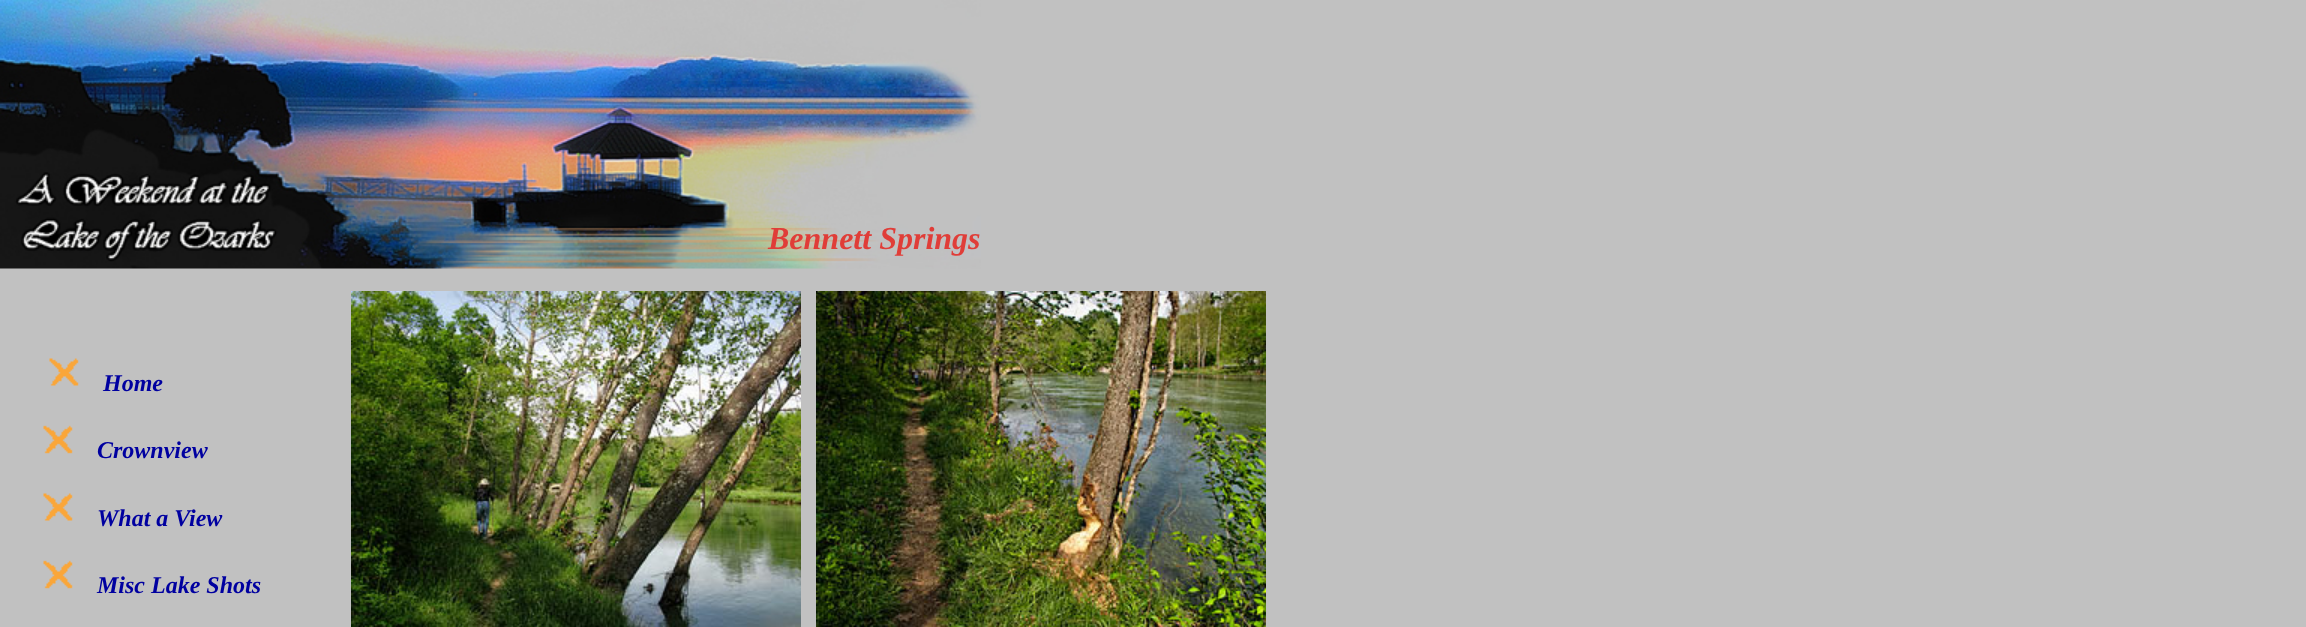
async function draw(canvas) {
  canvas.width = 2306;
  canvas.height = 627;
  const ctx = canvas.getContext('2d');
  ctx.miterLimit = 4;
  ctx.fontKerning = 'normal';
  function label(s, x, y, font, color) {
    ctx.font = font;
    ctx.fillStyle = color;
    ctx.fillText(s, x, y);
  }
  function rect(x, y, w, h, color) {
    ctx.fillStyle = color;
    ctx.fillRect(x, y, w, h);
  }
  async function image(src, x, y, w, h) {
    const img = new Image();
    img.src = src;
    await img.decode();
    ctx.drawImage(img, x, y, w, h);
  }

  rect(0, 0, 2306, 627, '#c1c1c1');
  await image('assets/img1.png', 0, 0, 981, 269);
  label('Bennett Springs', 768, 249, 'italic bold 32px Liberation Serif', '#e03d38');
  await image('assets/img2.png', 49, 358, 30, 28);
  label('Home', 103, 391, 'italic bold 24px Liberation Serif', '#0000a0');
  await image('assets/img3.png', 43, 425, 30, 29);
  label('Crownview', 97, 458, 'italic bold 24px Liberation Serif', '#0000a0');
  await image('assets/img2.png', 43, 493, 30, 28);
  label('What a View', 97, 526, 'italic bold 24px Liberation Serif', '#0000a0');
  await image('assets/img3.png', 43, 560, 30, 29);
  label('Misc Lake Shots', 97, 593, 'italic bold 24px Liberation Serif', '#0000a0');
  await image('assets/img4.png', 351, 291, 450, 336);
  await image('assets/img5.png', 816, 291, 450, 336);
}

draw(document.querySelector('canvas'));
